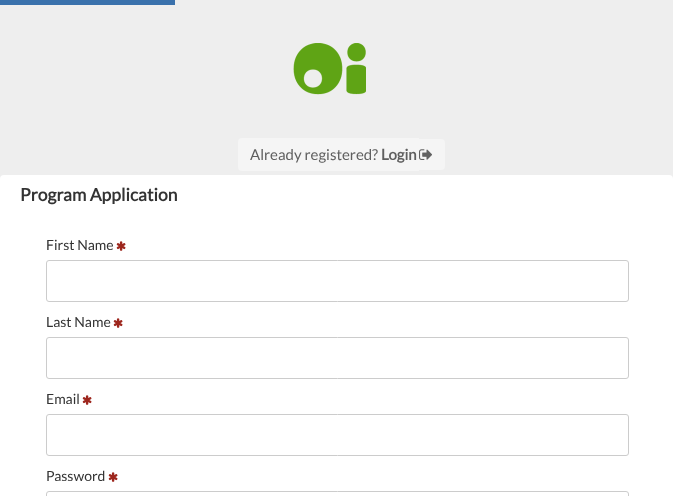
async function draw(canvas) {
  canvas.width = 673;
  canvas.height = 496;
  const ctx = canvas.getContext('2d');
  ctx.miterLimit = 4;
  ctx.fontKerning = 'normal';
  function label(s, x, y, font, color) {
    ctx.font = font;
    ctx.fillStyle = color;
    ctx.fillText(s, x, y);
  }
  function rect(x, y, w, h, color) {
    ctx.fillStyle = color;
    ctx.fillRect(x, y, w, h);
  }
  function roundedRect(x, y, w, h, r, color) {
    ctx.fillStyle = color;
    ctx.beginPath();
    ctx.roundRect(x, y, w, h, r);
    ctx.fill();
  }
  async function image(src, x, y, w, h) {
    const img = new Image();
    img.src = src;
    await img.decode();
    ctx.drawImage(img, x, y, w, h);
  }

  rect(0, 0, 673, 496, '#eee');
  rect(0, 0, 175, 5, '#3a71ac');
  await image('assets/img1.png', 293, 43, 73, 52);
  ctx.fillStyle = '#f5f5f5';
  ctx.beginPath();
  ctx.roundRect(238, 138, 143, 33, [4, 0, 0, 4]);
  ctx.fill();
  rect(381, 138, 38, 33, '#f5f5f5');
  ctx.beginPath();
  ctx.roundRect(419, 139, 26, 31, [0, 4, 4, 0]);
  ctx.fill();
  label('Already registered?', 250, 160, '15px Lato', '#5f5f5f');
  label('Login', 381, 160, 'bold 15px Lato', '#5f5f5f');
  await image('assets/img2.png', 419, 149, 13, 11);
  roundedRect(0, 175, 673, 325, 4, '#fff');
  label('Program Application', 20, 201, 'bold 17.5px Lato', '#333');
  label('First Name', 46, 250, '14px Lato', '#333');
  await image('assets/img3.png', 116, 241, 10, 10);
  ctx.beginPath();
  ctx.roundRect(46.5, 260.5, 582, 41, 2.5);
  ctx.strokeStyle = '#ccc';
  ctx.stroke();
  label('Last Name', 46, 327, '14px Lato', '#333');
  await image('assets/img3.png', 113, 318, 10, 10);
  ctx.beginPath();
  ctx.roundRect(46.5, 337.5, 582, 41, 2.5);
  ctx.stroke();
  label('Email', 46, 404, '14px Lato', '#333');
  await image('assets/img3.png', 82, 395, 10, 10);
  ctx.beginPath();
  ctx.roundRect(46.5, 414.5, 582, 41, 2.5);
  ctx.stroke();
  label('Password', 46, 481, '14px Lato', '#333');
  await image('assets/img3.png', 108, 472, 10, 10);
  ctx.beginPath();
  ctx.roundRect(46.5, 491.5, 582, 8, 2.5);
  ctx.stroke();
}

draw(document.querySelector('canvas'));
